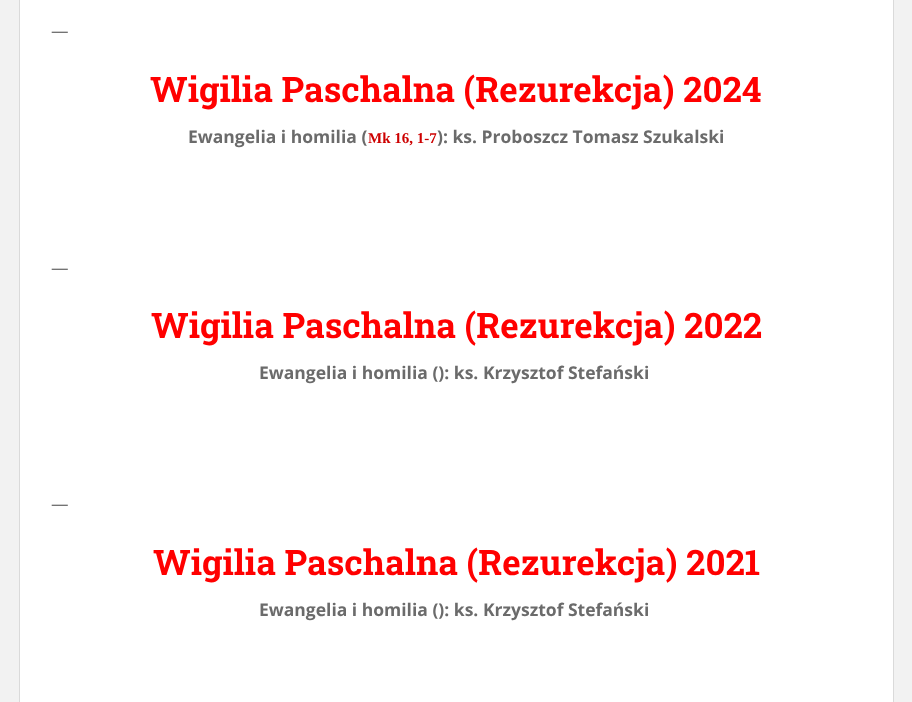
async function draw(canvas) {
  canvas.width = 912;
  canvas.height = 702;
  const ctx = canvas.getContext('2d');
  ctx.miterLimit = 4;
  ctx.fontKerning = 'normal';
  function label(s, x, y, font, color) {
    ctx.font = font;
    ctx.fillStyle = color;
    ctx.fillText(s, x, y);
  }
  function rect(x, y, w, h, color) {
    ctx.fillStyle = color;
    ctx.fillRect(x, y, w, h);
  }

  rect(0, 0, 912, 702, '#f2f2f2');
  ctx.fillStyle = '#fff';
  ctx.beginPath();
  ctx.rect(19.5, -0.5, 874, 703);
  ctx.fill();
  ctx.strokeStyle = '#dadada';
  ctx.stroke();
  label('—', 51, 37, '17.5px Open Sans', '#6b6b6b');
  label('Wigilia Paschalna (Rezurekcja) 2024', 150, 102, 'bold 35px Roboto Slab', '#f00');
  label('Ewangelia i homilia (', 188, 143, 'bold 17.5px Open Sans', '#6b6b6b');
  label('Mk 16, 1-7', 368, 143, 'bold 15px Liberation Serif', '#cd0000');
  label('): ks. Proboszcz Tomasz Szukalski', 437, 143, 'bold 17.5px Open Sans', '#6b6b6b');
  label('—', 51, 274, '17.5px Open Sans', '#6b6b6b');
  label('Wigilia Paschalna (Rezurekcja) 2022', 151, 338, 'bold 35px Roboto Slab', '#f00');
  label('Ewangelia i homilia (): ks. Krzysztof Stefański', 259, 379, 'bold 17.5px Open Sans', '#6b6b6b');
  label('—', 51, 510, '17.5px Open Sans', '#6b6b6b');
  label('Wigilia Paschalna (Rezurekcja) 2021', 153, 575, 'bold 35px Roboto Slab', '#f00');
  label('Ewangelia i homilia (): ks. Krzysztof Stefański', 259, 616, 'bold 17.5px Open Sans', '#6b6b6b');
}

draw(document.querySelector('canvas'));
